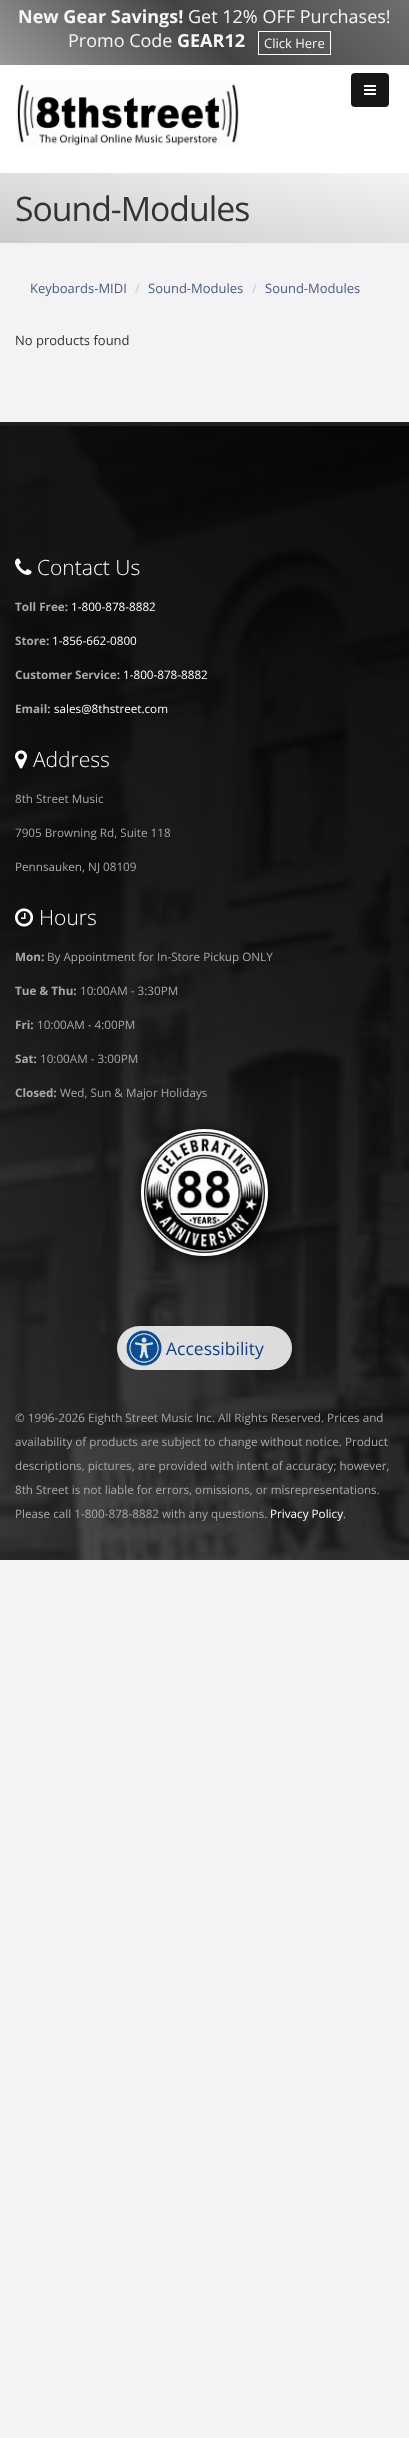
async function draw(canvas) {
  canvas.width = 409;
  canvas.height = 2438;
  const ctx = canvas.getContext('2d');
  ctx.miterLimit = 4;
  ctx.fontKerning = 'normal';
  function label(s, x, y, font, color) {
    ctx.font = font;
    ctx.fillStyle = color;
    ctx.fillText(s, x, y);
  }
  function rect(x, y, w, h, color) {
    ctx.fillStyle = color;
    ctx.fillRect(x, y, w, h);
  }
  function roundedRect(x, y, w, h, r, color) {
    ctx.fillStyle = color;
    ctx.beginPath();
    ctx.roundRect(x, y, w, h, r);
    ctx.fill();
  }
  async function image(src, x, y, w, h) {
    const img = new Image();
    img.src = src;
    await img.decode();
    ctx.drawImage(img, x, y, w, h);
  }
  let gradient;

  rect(0, 0, 409, 2438, '#f3f3f6');
  gradient = ctx.createLinearGradient(86, 151, 323, -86);
  gradient.addColorStop(0, '#98999a');
  gradient.addColorStop(0.5, '#434343');
  gradient.addColorStop(1, '#6e6f6f');
  ctx.fillStyle = gradient;
  ctx.fillRect(0, 0, 409, 65);
  label('New Gear Savings!', 18, 23, 'bold 18px Open Sans', '#f7f7f7');
  label('Get 12% OFF Purchases!', 188, 23, '18px Open Sans', '#f7f7f7');
  label('Promo Code', 68, 47, '18px Open Sans', '#f7f7f7');
  label('GEAR12', 177, 47, 'bold 18px Open Sans', '#f7f7f7');
  ctx.strokeStyle = '#fff';
  ctx.strokeRect(258.5, 31.5, 72, 23);
  label('Click Here', 264, 48, '13px Open Sans', '#f7f7f7');
  rect(0, 65, 409, 108, '#fff');
  await image('assets/img1.png', 16, 80, 224, 67);
  roundedRect(351, 73, 38, 34, 4, '#171717');
  await image('assets/img2.png', 364, 85, 12, 10);
  gradient = ctx.createLinearGradient(192, 277, 217, 139);
  gradient.addColorStop(0, '#cccccd');
  gradient.addColorStop(1, '#f3f3f6');
  ctx.fillStyle = gradient;
  ctx.fillRect(0, 173, 409, 70);
  ctx.letterSpacing = '-1px';
  label('Sound-Modules', 15, 221, '33.75px Open Sans', '#333');
  ctx.letterSpacing = '0px';
  label('Keyboards-MIDI', 30, 293, '13px Open Sans', '#4a5b7d');
  label('/', 135, 293, '13px Open Sans', '#ccc');
  label('Sound-Modules', 148, 293, '13px Open Sans', '#4a5b7d');
  label('/', 252, 293, '13px Open Sans', '#ccc');
  label('Sound-Modules', 265, 293, '13px Open Sans', '#4a5b7d');
  label('No products found', 15, 345, '13px Open Sans', '#333');
  await image('assets/img3.png', 0, 426, 409, 1134);
  rect(0, 422, 409, 4, '#1f1f1f');
  await image('assets/img4.png', 15, 558, 17, 17);
  label('Contact Us', 37, 575, '300 21px Open Sans', '#fff');
  label('Toll Free:', 15, 611, 'bold 11.7px Open Sans', '#a9a7a7');
  label('1-800-878-8882', 71, 611, '11.7px Open Sans', '#fff');
  label('Store:', 15, 645, 'bold 11.7px Open Sans', '#a9a7a7');
  label('1-856-662-0800', 52, 645, '11.7px Open Sans', '#fff');
  label('Customer Service:', 15, 679, 'bold 11.7px Open Sans', '#a9a7a7');
  label('1-800-878-8882', 123, 679, '11.7px Open Sans', '#fff');
  label('Email:', 15, 713, 'bold 11.7px Open Sans', '#a9a7a7');
  label('sales@8thstreet.com', 54, 713, '11.7px Open Sans', '#fff');
  await image('assets/img5.png', 15, 750, 12, 19);
  label('Address', 33, 767, '300 21px Open Sans', '#fff');
  label('8th Street Music', 15, 803, '11.7px Open Sans', '#a9a7a7');
  label('7905 Browning Rd, Suite 118', 15, 837, '11.7px Open Sans', '#a9a7a7');
  label('Pennsauken, NJ 08109', 15, 871, '11.7px Open Sans', '#a9a7a7');
  await image('assets/img6.png', 15, 908, 19, 19);
  label('Hours', 39, 925, '300 21px Open Sans', '#fff');
  label('Mon:', 15, 961, 'bold 11.7px Open Sans', '#a9a7a7');
  label('By Appointment for In-Store Pickup ONLY', 47, 961, '11.7px Open Sans', '#a9a7a7');
  label('Tue & Thu:', 15, 995, 'bold 11.7px Open Sans', '#a9a7a7');
  label('10:00AM - 3:30PM', 80, 995, '11.7px Open Sans', '#a9a7a7');
  label('Fri:', 15, 1029, 'bold 11.7px Open Sans', '#a9a7a7');
  label('10:00AM - 4:00PM', 37, 1029, '11.7px Open Sans', '#a9a7a7');
  label('Sat:', 15, 1063, 'bold 11.7px Open Sans', '#a9a7a7');
  label('10:00AM - 3:00PM', 40, 1063, '11.7px Open Sans', '#a9a7a7');
  label('Closed:', 15, 1097, 'bold 11.7px Open Sans', '#a9a7a7');
  label('Wed, Sun & Major Holidays', 60, 1097, '11.7px Open Sans', '#a9a7a7');
  ctx.fillStyle = '#000000bf';
  ctx.filter = 'blur(7.5px)';
  ctx.beginPath();
  ctx.roundRect(142, 1132, 127, 127, 63.5);
  ctx.fill();
  ctx.filter = 'none';
  ctx.beginPath();
  ctx.arc(204.5, 1192.5, 62, 0, 2 * Math.PI);
  ctx.lineWidth = 3;
  ctx.stroke();
  await image('assets/img7.png', 144, 1132, 121, 121);
  roundedRect(117, 1326, 175, 44, 22, '#ffffffd9');
  await image('assets/img8.png', 126, 1330, 36, 36);
  label('Accessibility', 166, 1355, '17.5px Open Sans', '#143e80');
  label('© 1996-2026 Eighth Street Music Inc. All Rights Reserved. Prices and', 15, 1422, '11.7px Open Sans', '#a9a7a7');
  label('availability of products are subject to change without notice. Product', 15, 1446, '11.7px Open Sans', '#a9a7a7');
  label('descriptions, pictures, are provided with intent of accuracy; however,', 15, 1470, '11.7px Open Sans', '#a9a7a7');
  label('8th Street is not liable for errors, omissions, or misrepresentations.', 15, 1494, '11.7px Open Sans', '#a9a7a7');
  label('Please call 1-800-878-8882 with any questions.', 15, 1518, '11.7px Open Sans', '#a9a7a7');
  label('Privacy Policy', 270, 1518, '11.7px Open Sans', '#fff');
  label('.', 343, 1518, '11.7px Open Sans', '#a9a7a7');
}

draw(document.querySelector('canvas'));
